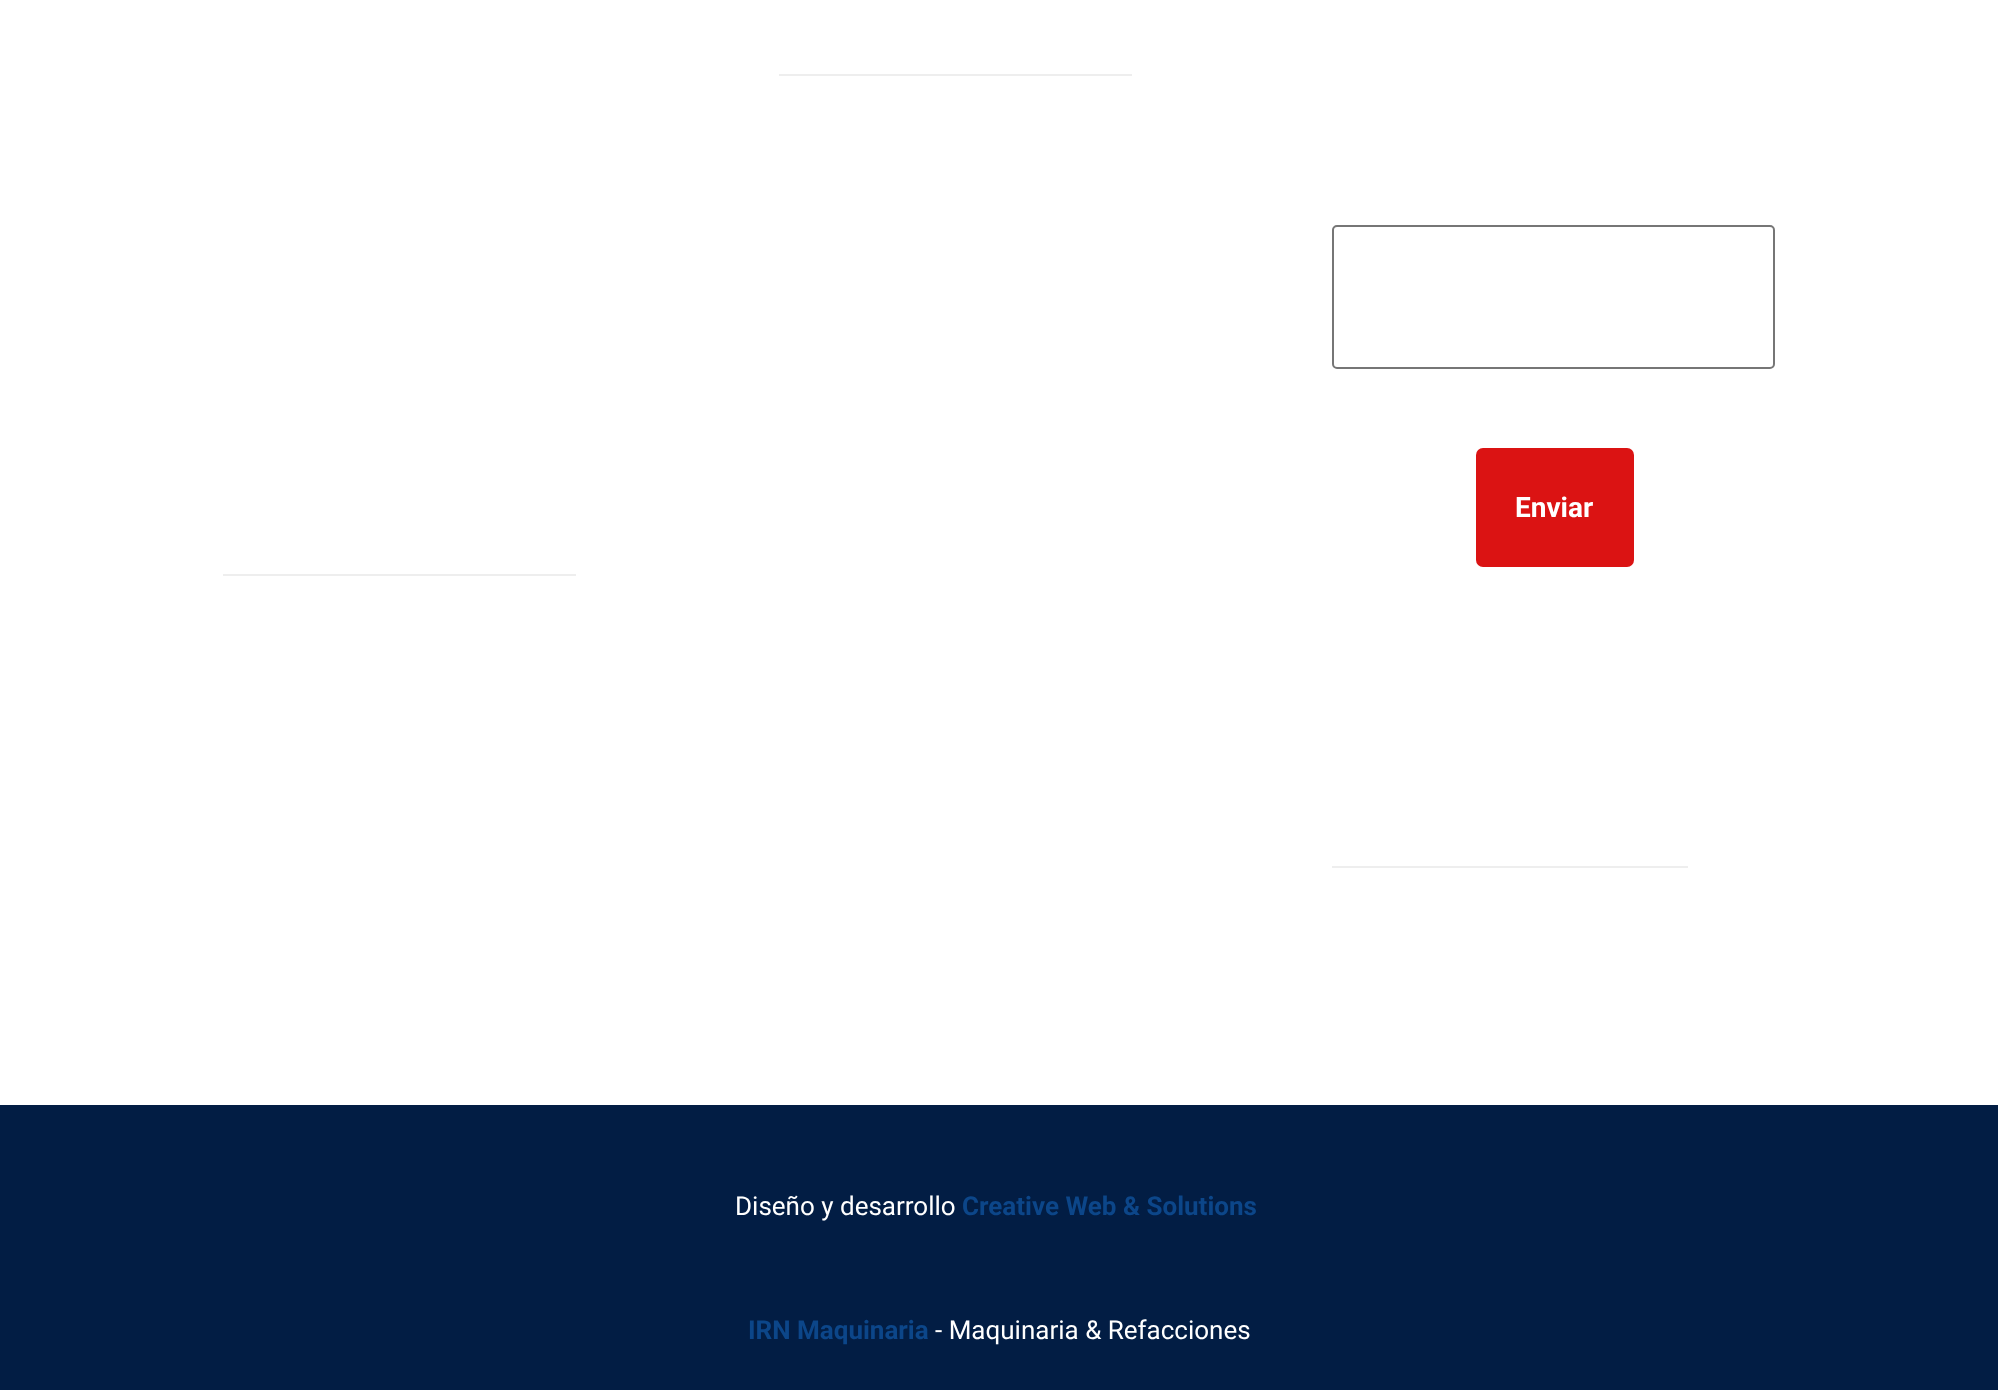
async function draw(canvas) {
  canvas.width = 1998;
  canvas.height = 1390;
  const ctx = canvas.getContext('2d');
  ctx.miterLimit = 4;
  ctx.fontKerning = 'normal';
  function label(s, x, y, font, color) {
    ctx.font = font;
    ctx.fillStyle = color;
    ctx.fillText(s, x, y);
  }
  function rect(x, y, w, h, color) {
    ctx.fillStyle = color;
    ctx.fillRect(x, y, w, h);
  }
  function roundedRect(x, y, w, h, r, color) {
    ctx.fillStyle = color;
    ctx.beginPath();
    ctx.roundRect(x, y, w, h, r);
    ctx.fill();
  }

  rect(0, 0, 1998, 1390, '#fff');
  rect(779, 74, 353, 2, '#eee');
  ctx.beginPath();
  ctx.roundRect(1333, 226, 441, 142, 4);
  ctx.strokeStyle = '#767676';
  ctx.lineWidth = 2;
  ctx.stroke();
  roundedRect(1476, 448, 158, 119, 7, '#db1313');
  label('Enviar', 1515, 517, 'bold 28px Roboto', '#fff');
  rect(1332, 866, 356, 2, '#eee');
  rect(223, 574, 353, 2, '#eee');
  rect(0, 1105, 1998, 285, '#021d44');
  label('Diseño y desarrollo', 735, 1215, '26px Roboto', '#fff');
  label('Creative Web & Solutions', 962, 1215, 'bold 26px Roboto', '#0c4689');
  label('IRN Maquinaria', 748, 1339, 'bold 26px Roboto', '#0c4689');
  label('- Maquinaria & Refacciones', 935, 1339, '26px Roboto', '#fff');
}

draw(document.querySelector('canvas'));
